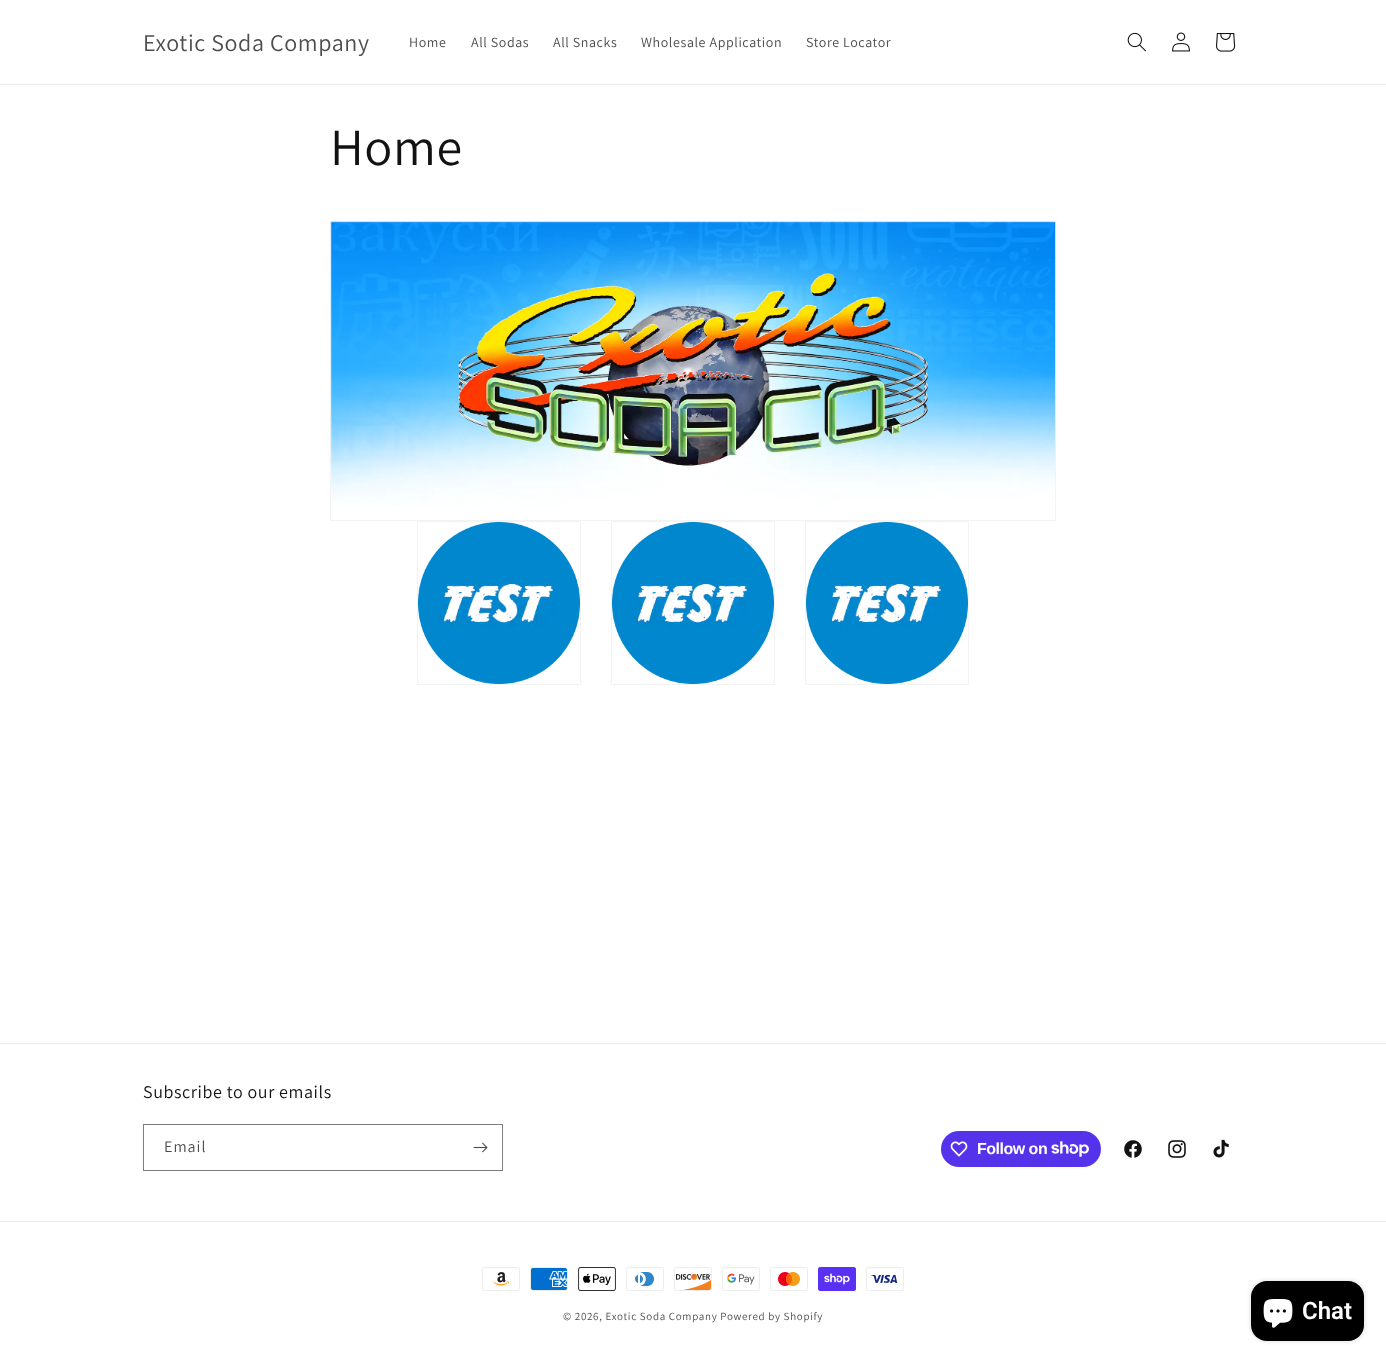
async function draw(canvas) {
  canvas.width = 1386;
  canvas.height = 1362;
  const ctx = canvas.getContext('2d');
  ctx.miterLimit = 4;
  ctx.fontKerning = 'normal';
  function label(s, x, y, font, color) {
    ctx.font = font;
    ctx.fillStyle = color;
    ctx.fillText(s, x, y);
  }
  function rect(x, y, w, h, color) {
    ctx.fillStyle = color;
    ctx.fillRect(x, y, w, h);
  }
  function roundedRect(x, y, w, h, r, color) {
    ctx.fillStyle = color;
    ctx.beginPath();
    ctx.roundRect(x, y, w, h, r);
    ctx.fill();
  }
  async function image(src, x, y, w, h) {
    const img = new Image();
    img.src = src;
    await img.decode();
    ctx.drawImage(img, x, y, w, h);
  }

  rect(0, 0, 1386, 1362, '#fff');
  rect(0, 84, 1386, 1, '#ececec');
  ctx.letterSpacing = '0.6px';
  label('Exotic Soda Company', 143, 51, '24px Assistant', '#4d4d4d');
  label('Home', 409, 47, '14px Assistant', '#4d4d4d');
  label('All Sodas', 471, 47, '14px Assistant', '#4d4d4d');
  label('All Snacks', 553, 47, '14px Assistant', '#4d4d4d');
  label('Wholesale Application', 641, 47, '14px Assistant', '#4d4d4d');
  label('Store Locator', 806, 47, '14px Assistant', '#4d4d4d');
  await image('assets/img1.png', 1127, 32, 19, 20);
  await image('assets/img2.png', 1172, 32, 18, 20);
  await image('assets/img3.png', 1216, 33, 20, 19);
  label('Home', 330, 165, '52px Assistant', '#121212');
  ctx.strokeStyle = '#f3f3f3';
  ctx.strokeRect(330.5, 221.5, 725, 299);
  await image('assets/img4.png', 330, 221, 726, 286);
  ctx.strokeRect(417.5, 521.5, 163, 163);
  await image('assets/img5.png', 418, 522, 162, 162);
  ctx.strokeRect(611.5, 521.5, 163, 163);
  await image('assets/img5.png', 612, 522, 162, 162);
  ctx.strokeRect(805.5, 521.5, 163, 163);
  await image('assets/img5.png', 806, 522, 162, 162);
  rect(0, 1043, 1386, 1, '#ececec');
  label('Subscribe to our emails', 143, 1098, '18px Assistant', '#121212');
  ctx.strokeStyle = '#7d7d7d';
  ctx.strokeRect(143.5, 1124.5, 359, 46);
  ctx.letterSpacing = '1px';
  label('Email', 164, 1152, '16px Assistant', '#4d4d4d');
  await image('assets/img6.png', 473, 1142, 15, 11);
  roundedRect(941, 1131, 160, 36, 18, '#5433eb');
  await image('assets/img7.png', 950, 1141, 18, 16);
  ctx.letterSpacing = '-0.5px';
  label('Follow on', 977, 1154, 'bold 16px Liberation Sans', '#fff');
  await image('assets/img8.png', 1051, 1141, 38, 16);
  await image('assets/img9.png', 1124, 1140, 18, 18);
  await image('assets/img10.png', 1168, 1140, 18, 18);
  await image('assets/img11.png', 1213, 1139, 16, 19);
  rect(0, 1221, 1386, 1, '#ececec');
  await image('assets/img12.png', 482, 1267, 38, 24);
  await image('assets/img13.png', 530, 1267, 38, 24);
  await image('assets/img14.png', 578, 1267, 38, 24);
  await image('assets/img15.png', 626, 1267, 38, 24);
  await image('assets/img16.png', 674, 1267, 38, 24);
  await image('assets/img17.png', 722, 1267, 38, 24);
  await image('assets/img18.png', 770, 1267, 38, 24);
  await image('assets/img19.png', 818, 1267, 38, 24);
  await image('assets/img20.png', 866, 1267, 38, 24);
  ctx.letterSpacing = '0.7px';
  label('© 2026, Exotic Soda Company Powered by Shopify', 563, 1320, '11px Assistant', '#4d4d4d');
  ctx.fillStyle = '#00000026';
  ctx.filter = 'blur(2.5px)';
  ctx.beginPath();
  ctx.roundRect(1251, 1281, 113, 60, 16);
  ctx.fill();
  ctx.filter = 'none';
  roundedRect(1251, 1281, 113, 60, 16, '#000');
  await image('assets/img21.png', 1263, 1299, 30, 29);
  ctx.letterSpacing = '0px';
  label('Chat', 1302, 1319, '600 24px Roboto', '#fff');
}

draw(document.querySelector('canvas'));
